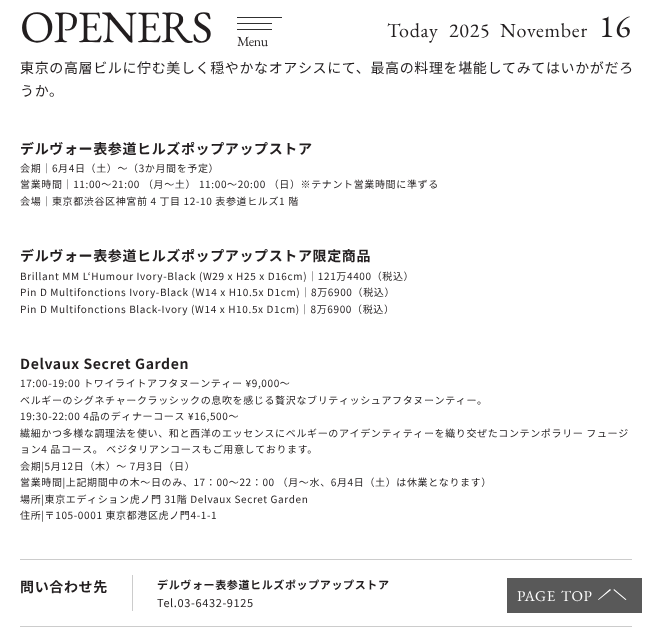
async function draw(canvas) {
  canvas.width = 652;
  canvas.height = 633;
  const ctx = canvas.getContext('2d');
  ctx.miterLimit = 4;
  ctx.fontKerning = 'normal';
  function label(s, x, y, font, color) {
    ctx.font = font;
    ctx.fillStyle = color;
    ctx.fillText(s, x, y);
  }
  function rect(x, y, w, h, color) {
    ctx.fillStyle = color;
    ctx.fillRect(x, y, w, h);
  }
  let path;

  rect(0, 0, 652, 633, '#fff');
  ctx.letterSpacing = '-1px';
  label('OPENERS', 20, 42, '45px EB Garamond', '#221e1f');
  rect(237, 17, 45, 1, '#303030');
  rect(237, 23, 35, 1, '#303030');
  rect(237, 29, 35, 1, '#303030');
  ctx.letterSpacing = '-0.5px';
  label('Menu', 237, 46, '14px EB Garamond', '#221e1f');
  ctx.letterSpacing = '0.75px';
  label('Today', 387, 37, '20px EB Garamond', '#221e1f');
  label('2025', 449, 37, '20px EB Garamond', '#221e1f');
  label('November', 500, 37, '20px EB Garamond', '#221e1f');
  ctx.letterSpacing = '1px';
  label('16', 599, 37, '32px EB Garamond', '#221e1f');
  ctx.letterSpacing = '0.63px';
  label('東京の高層ビルに佇む美しく穏やかなオアシスにて、最高の料理を堪能してみてはいかがだろ', 20, 73, '14px Noto Sans JP', '#221e1f');
  label('うか。', 20, 96, '14px Noto Sans JP', '#221e1f');
  label('デルヴォー表参道ヒルズポップアップストア', 20, 154, 'bold 14px Noto Sans JP', '#221e1f');
  label('会期｜6月4日（土）～（3か月間を予定）', 20, 172, '10px Noto Sans JP', '#221e1f');
  label('営業時間｜11:00～21:00 （月～土） 11:00～20:00 （日）※テナント営業時間に準ずる', 20, 188, '10px Noto Sans JP', '#221e1f');
  label('会場｜東京都渋谷区神宮前 4 丁目 12-10 表参道ヒルズ1 階', 20, 205, '10px Noto Sans JP', '#221e1f');
  label('デルヴォー表参道ヒルズポップアップストア限定商品', 20, 261, 'bold 14px Noto Sans JP', '#221e1f');
  label('Brillant MM L‘Humour Ivory-Black (W29 x H25 x D16cm)｜121万4400（税込）', 20, 280, '10px Noto Sans JP', '#221e1f');
  label('Pin D Multifonctions Ivory-Black (W14 x H10.5x D1cm)｜8万6900（税込）', 20, 296, '10px Noto Sans JP', '#221e1f');
  label('Pin D Multifonctions Black-Ivory (W14 x H10.5x D1cm)｜8万6900（税込）', 20, 313, '10px Noto Sans JP', '#221e1f');
  label('Delvaux Secret Garden', 20, 369, 'bold 14px Noto Sans JP', '#221e1f');
  label('17:00-19:00 トワイライトアフタヌーンティー ¥9,000～', 20, 387, '10px Noto Sans JP', '#221e1f');
  label('ベルギーのシグネチャークラッシックの息吹を感じる贅沢なブリティッシュアフタヌーンティー。', 20, 404, '10px Noto Sans JP', '#221e1f');
  label('19:30-22:00 4品のディナーコース ¥16,500～', 20, 420, '10px Noto Sans JP', '#221e1f');
  label('繊細かつ多様な調理法を使い、和と西洋のエッセンスにベルギーのアイデンティティーを織り交ぜたコンテンポラリー フュージ', 20, 437, '10px Noto Sans JP', '#221e1f');
  label('ョン4 品コース。 ベジタリアンコースもご用意しております。', 20, 453, '10px Noto Sans JP', '#221e1f');
  label('会期|5月12日（木）～ 7月3日（日）', 20, 470, '10px Noto Sans JP', '#221e1f');
  label('営業時間|上記期間中の木～日のみ、17：00～22：00 （月～水、6月4日（土）は休業となります）', 20, 486, '10px Noto Sans JP', '#221e1f');
  label('場所|東京エディション虎ノ門 31階 Delvaux Secret Garden', 20, 503, '10px Noto Sans JP', '#221e1f');
  label('住所|〒105-0001 東京都港区虎ノ門4-1-1', 20, 519, '10px Noto Sans JP', '#221e1f');
  rect(20, 559, 612, 1, '#ccc');
  rect(20, 626, 612, 1, '#ccc');
  label('問い合わせ先', 20, 592, 'bold 14px Noto Sans JP', '#221e1f');
  rect(132, 575, 1, 36, '#ccc');
  label('デルヴォー表参道ヒルズポップアップストア', 157, 589, 'bold 11px Noto Sans JP', '#221e1f');
  label('Tel.03-6432-9125', 157, 607, '11px Noto Sans JP', '#221e1f');
  rect(507, 578, 135, 35, '#595959');
  label('PAGE', 517, 601, '15px EB Garamond', '#fff');
  label('TOP', 561, 601, '15px EB Garamond', '#fff');
  path = new Path2D('M598 599.5L610 589L611 590L598.5 600ZM614 589L626.5 599.5L625.5 600L613.5 590Z');
  ctx.fill(path);
}

draw(document.querySelector('canvas'));
